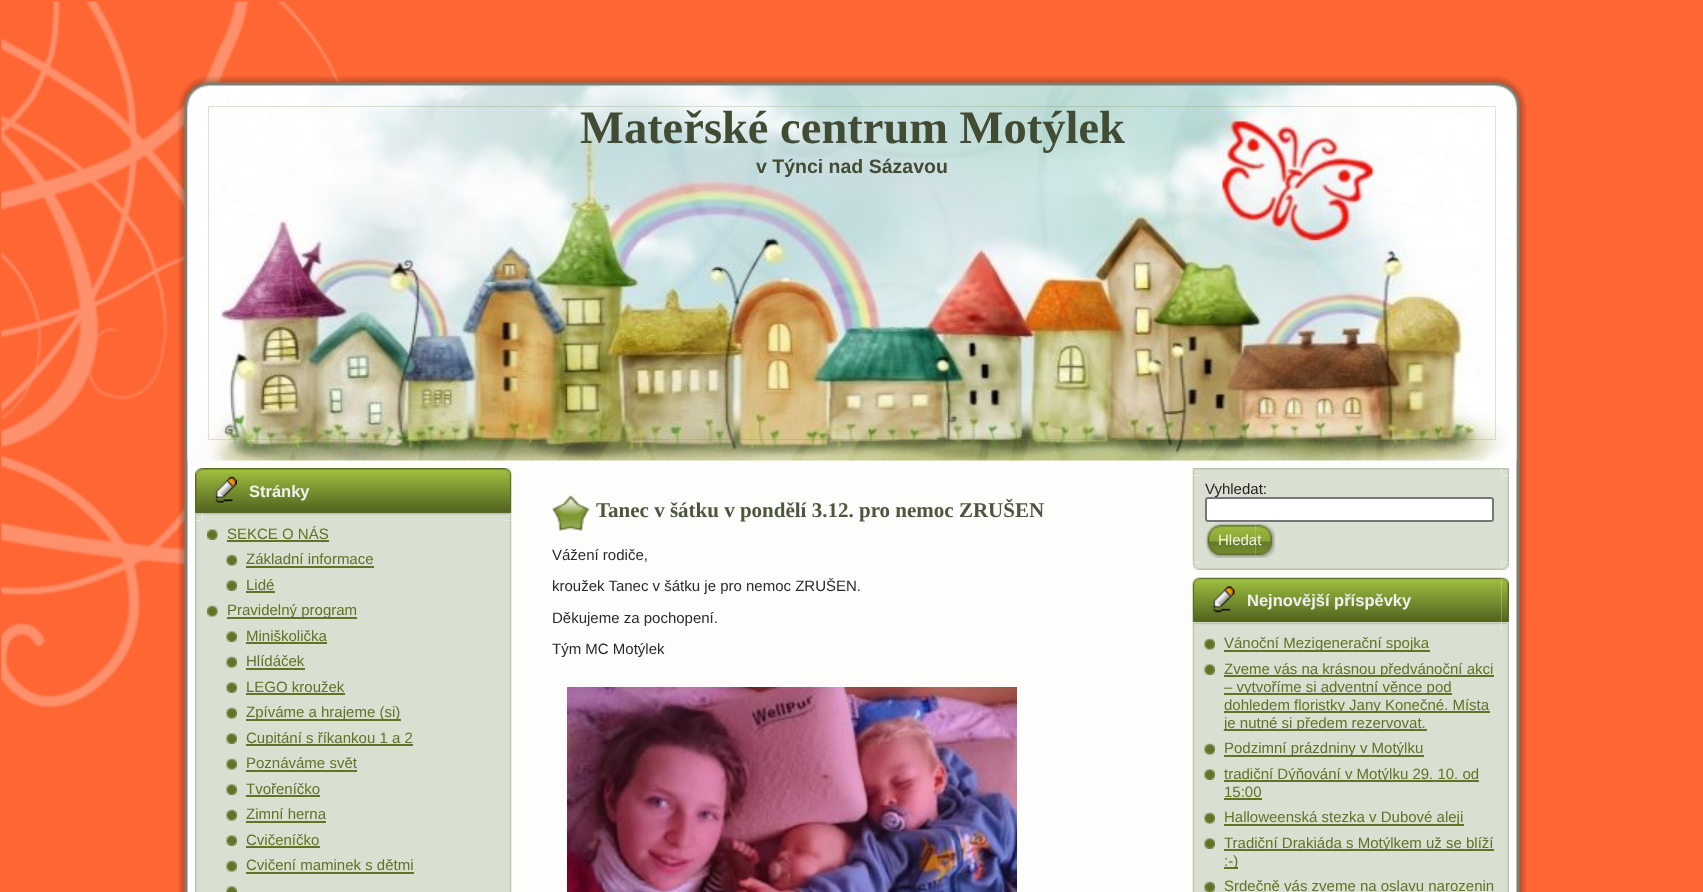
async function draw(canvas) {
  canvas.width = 1703;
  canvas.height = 892;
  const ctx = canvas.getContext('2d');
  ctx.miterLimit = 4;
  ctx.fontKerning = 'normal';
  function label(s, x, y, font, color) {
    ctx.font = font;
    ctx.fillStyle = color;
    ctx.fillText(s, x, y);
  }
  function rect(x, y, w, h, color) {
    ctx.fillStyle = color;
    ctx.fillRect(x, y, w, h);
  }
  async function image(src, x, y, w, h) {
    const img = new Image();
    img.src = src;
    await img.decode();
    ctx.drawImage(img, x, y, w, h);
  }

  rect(0, 0, 1703, 892, '#fe6634');
  await image('assets/img1.png', 1, 1, 340, 707);
  await image('assets/img2.png', 178, 76, 53, 53);
  await image('assets/img3.png', 231, 76, 1242, 10);
  await image('assets/img4.png', 1473, 76, 54, 53);
  await image('assets/img5.png', 178, 129, 53, 763);
  await image('assets/img44.png', 1473, 129, 54, 763);
  rect(231, 460, 1242, 432, '#fdfdfc');
  await image('assets/img6.png', 187, 85, 1330, 376);
  await image('assets/img7.png', 208, 106, 1288, 334);
  label('Mateřské centrum Motýlek', 580, 143, 'bold 46.5px Liberation Serif', '#424b34');
  label('v Týnci nad Sázavou', 756, 173, 'bold 19.5px Liberation Sans', '#424b34');
  await image('assets/img8.png', 195, 468, 309, 45);
  await image('assets/img9.png', 504, 468, 8, 45);
  await image('assets/img10.png', 215, 476, 22, 27);
  label('Stránky', 249, 497, 'bold 16.5px Liberation Sans', '#f0f0ef');
  rect(202, 520, 302, 372, '#d9dfd1');
  await image('assets/img11.png', 195, 513, 8, 8);
  await image('assets/img12.png', 202, 513, 302, 7);
  await image('assets/img13.png', 504, 513, 8, 8);
  await image('assets/img14.png', 195, 520, 7, 372);
  await image('assets/img15.png', 504, 520, 8, 372);
  await image('assets/img16.png', 207, 529, 11, 11);
  label('SEKCE O NÁS', 227, 539, '15px Liberation Sans', '#607326');
  rect(227, 540, 102, 2, '#607326');
  await image('assets/img17.png', 226, 554, 11, 12);
  label('Základní informace', 246, 564, '15px Liberation Sans', '#607326');
  rect(246, 566, 128, 2, '#607326');
  await image('assets/img18.png', 226, 580, 11, 11);
  label('Lidé', 246, 590, '15px Liberation Sans', '#607326');
  rect(246, 591, 29, 2, '#607326');
  await image('assets/img19.png', 207, 605, 11, 12);
  rect(227, 617, 130, 2, '#607326');
  label('Pravidelný program', 227, 615, '15px Liberation Sans', '#607326');
  await image('assets/img18.png', 226, 631, 11, 11);
  label('Miniškolička', 246, 641, '15px Liberation Sans', '#607326');
  rect(246, 642, 81, 2, '#607326');
  await image('assets/img17.png', 226, 656, 11, 12);
  label('Hlídáček', 246, 666, '15px Liberation Sans', '#607326');
  rect(246, 668, 59, 2, '#607326');
  await image('assets/img18.png', 226, 682, 11, 11);
  label('LEGO kroužek', 246, 692, '15px Liberation Sans', '#607326');
  rect(246, 693, 99, 2, '#607326');
  await image('assets/img17.png', 226, 707, 11, 12);
  rect(246, 719, 155, 2, '#607326');
  label('Zpíváme a hrajeme (si)', 246, 717, '15px Liberation Sans', '#607326');
  await image('assets/img18.png', 226, 733, 11, 11);
  rect(246, 744, 167, 2, '#607326');
  label('Cupitání s říkankou 1 a 2', 246, 743, '15px Liberation Sans', '#607326');
  await image('assets/img17.png', 226, 758, 11, 12);
  label('Poznáváme svět', 246, 768, '15px Liberation Sans', '#607326');
  rect(246, 770, 111, 2, '#607326');
  await image('assets/img18.png', 226, 784, 11, 11);
  label('Tvořeníčko', 246, 794, '15px Liberation Sans', '#607326');
  rect(246, 795, 74, 2, '#607326');
  await image('assets/img17.png', 226, 809, 11, 12);
  label('Zimní herna', 246, 819, '15px Liberation Sans', '#607326');
  rect(246, 821, 80, 2, '#607326');
  await image('assets/img18.png', 226, 835, 11, 11);
  label('Cvičeníčko', 246, 845, '15px Liberation Sans', '#607326');
  rect(246, 846, 74, 2, '#607326');
  await image('assets/img17.png', 226, 860, 11, 12);
  label('Cvičení maminek s dětmi', 246, 870, '15px Liberation Sans', '#607326');
  rect(246, 872, 168, 2, '#607326');
  await image('assets/img20.png', 226, 886, 11, 6);
  await image('assets/img21.png', 552, 495, 38, 36);
  label('Tanec v šátku v pondělí 3.12. pro nemoc ZRUŠEN', 596, 517, 'bold 21px Liberation Serif', '#4d573d');
  label('Vážení rodiče,', 552, 560, '15px Liberation Sans', '#2a2b27');
  label('kroužek Tanec v šátku je pro nemoc ZRUŠEN.', 552, 591, '15px Liberation Sans', '#2a2b27');
  label('Děkujeme za pochopení.', 552, 623, '15px Liberation Sans', '#2a2b27');
  label('Tým MC Motýlek', 552, 654, '15px Liberation Sans', '#2a2b27');
  await image('assets/img22.png', 567, 687, 450, 205);
  await image('assets/img23.png', 1192, 468, 8, 8);
  rect(1200, 475, 302, 88, '#d9dfd1');
  await image('assets/img25.png', 1501, 468, 8, 8);
  await image('assets/img24.png', 1200, 468, 302, 7);
  await image('assets/img30.png', 1192, 562, 8, 8);
  await image('assets/img26.png', 1192, 475, 8, 88);
  await image('assets/img32.png', 1501, 562, 8, 8);
  await image('assets/img27.png', 1502, 475, 7, 88);
  label('Vyhledat:', 1205, 494, '15px Liberation Sans', '#1f201d');
  ctx.fillStyle = '#fff';
  ctx.beginPath();
  ctx.roundRect(1206, 498, 287, 23, 2);
  ctx.fill();
  ctx.strokeStyle = '#767676';
  ctx.lineWidth = 2;
  ctx.stroke();
  await image('assets/img29.png', 1255, 523, 20, 35);
  await image('assets/img28.png', 1205, 523, 51, 35);
  label('Hledat', 1218, 545, '15px Liberation Sans', '#f0f0ef');
  await image('assets/img31.png', 1200, 563, 302, 7);
  await image('assets/img33.png', 1192, 577, 310, 46);
  await image('assets/img34.png', 1501, 577, 8, 46);
  await image('assets/img35.png', 1213, 586, 22, 27);
  label('Nejnovější příspěvky', 1247, 606, 'bold 16.5px Liberation Sans', '#f0f0ef');
  await image('assets/img36.png', 1192, 622, 8, 8);
  await image('assets/img38.png', 1501, 622, 8, 8);
  await image('assets/img37.png', 1200, 622, 302, 8);
  await image('assets/img39.png', 1192, 630, 8, 262);
  rect(1200, 630, 302, 262, '#d9dfd1');
  await image('assets/img40.png', 1502, 630, 7, 262);
  await image('assets/img41.png', 1204, 638, 11, 12);
  rect(1224, 650, 206, 2, '#607326');
  label('Vánoční Mezigenerační spojka', 1224, 648, '15px Liberation Sans', '#607326');
  await image('assets/img42.png', 1204, 664, 11, 11);
  rect(1224, 675, 270, 2, '#607326');
  label('Zveme vás na krásnou předvánoční akci', 1224, 674, '15px Liberation Sans', '#607326');
  rect(1224, 693, 228, 2, '#607326');
  label('– vytvoříme si adventní věnce pod', 1224, 692, '15px Liberation Sans', '#607326');
  rect(1224, 711, 266, 2, '#607326');
  label('dohledem floristky Jany Konečné. Místa', 1224, 710, '15px Liberation Sans', '#607326');
  rect(1224, 729, 203, 2, '#607326');
  label('je nutné si předem rezervovat.', 1224, 728, '15px Liberation Sans', '#607326');
  await image('assets/img41.png', 1204, 743, 11, 12);
  rect(1224, 755, 200, 2, '#607326');
  label('Podzimní prázdniny v Motýlku', 1224, 753, '15px Liberation Sans', '#607326');
  await image('assets/img42.png', 1204, 769, 11, 11);
  rect(1224, 780, 255, 2, '#607326');
  label('tradiční Dýňování v Motýlku 29. 10. od', 1224, 779, '15px Liberation Sans', '#607326');
  label('15:00', 1224, 797, '15px Liberation Sans', '#607326');
  rect(1224, 798, 38, 2, '#607326');
  await image('assets/img41.png', 1204, 812, 11, 12);
  rect(1224, 824, 240, 2, '#607326');
  label('Halloweenská stezka v Dubové aleji', 1224, 822, '15px Liberation Sans', '#607326');
  await image('assets/img42.png', 1204, 838, 11, 11);
  rect(1224, 849, 270, 2, '#607326');
  label('Tradiční Drakiáda s Motýlkem už se blíží', 1224, 848, '15px Liberation Sans', '#607326');
  rect(1224, 867, 14, 2, '#607326');
  label(':-)', 1224, 866, '15px Liberation Sans', '#607326');
  await image('assets/img43.png', 1204, 881, 11, 11);
  label('Srdečně vás zveme na oslavu narozenin', 1224, 891, '15px Liberation Sans', '#607326');
}

draw(document.querySelector('canvas'));
